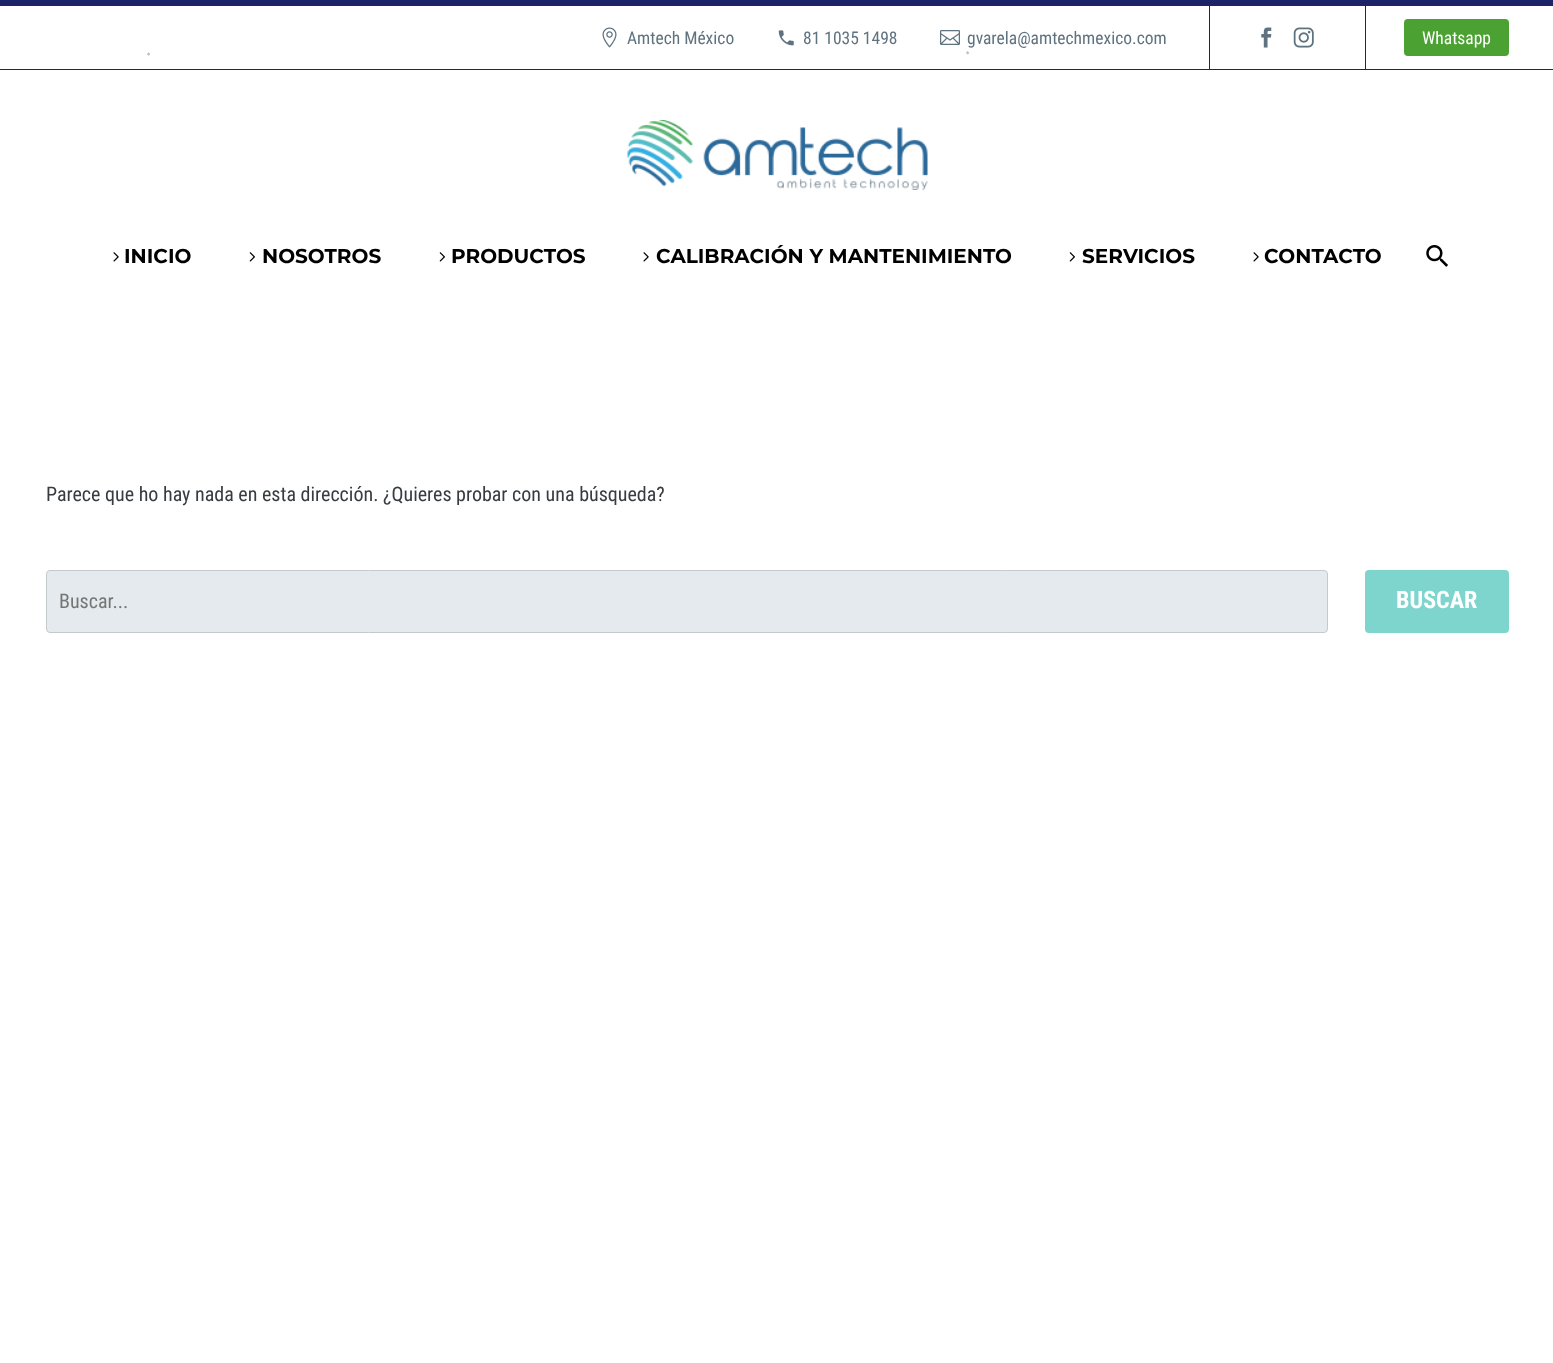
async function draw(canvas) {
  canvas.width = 1553;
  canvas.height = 1363;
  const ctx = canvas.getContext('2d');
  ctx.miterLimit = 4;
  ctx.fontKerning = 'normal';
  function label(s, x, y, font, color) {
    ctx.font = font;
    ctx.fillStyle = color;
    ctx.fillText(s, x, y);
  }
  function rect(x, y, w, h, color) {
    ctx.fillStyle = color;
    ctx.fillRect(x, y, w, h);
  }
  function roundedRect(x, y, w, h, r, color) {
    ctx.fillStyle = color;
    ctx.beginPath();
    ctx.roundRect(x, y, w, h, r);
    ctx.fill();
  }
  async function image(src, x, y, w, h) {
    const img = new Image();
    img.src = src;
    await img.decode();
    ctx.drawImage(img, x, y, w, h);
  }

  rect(0, 0, 1553, 1363, '#fff');
  rect(0, 0, 1553, 6, '#1c2366');
  rect(0, 69, 1553, 1, '#1c2366');
  await image('assets/img1.png', 602, 27, 15, 21);
  label('Amtech México', 627, 44, '17.5px Roboto Condensed', '#5f727f');
  await image('assets/img2.png', 778, 30, 16, 16);
  label('81 1035 1498', 803, 44, '17.5px Roboto Condensed', '#5f727f');
  await image('assets/img3.png', 940, 30, 20, 15);
  label('gvarela@amtechmexico.com', 967, 44, '17.5px Roboto Condensed', '#5f727f');
  rect(1209, 6, 1, 63, '#1c2366');
  await image('assets/img4.png', 1261, 27, 11, 21);
  await image('assets/img5.png', 1293, 27, 21, 21);
  rect(1365, 6, 1, 63, '#1c2366');
  roundedRect(1404, 19, 105, 37, 4, '#4ba233');
  label('Whatsapp', 1422, 44, '17.5px Roboto Condensed', '#fff');
  await image('assets/img6.png', 627, 120, 301, 70);
  await image('assets/img7.png', 113, 252, 6, 10);
  label('INICIO', 124, 263, 'bold 20px Montserrat', '#000');
  await image('assets/img8.png', 249, 252, 6, 10);
  label('NOSOTROS', 262, 263, 'bold 20px Montserrat', '#000');
  await image('assets/img8.png', 439, 252, 6, 10);
  label('PRODUCTOS', 451, 263, 'bold 20px Montserrat', '#000');
  await image('assets/img7.png', 643, 252, 6, 10);
  label('CALIBRACIÓN Y MANTENIMIENTO', 656, 263, 'bold 20px Montserrat', '#000');
  await image('assets/img8.png', 1069, 252, 6, 10);
  label('SERVICIOS', 1082, 263, 'bold 20px Montserrat', '#000');
  await image('assets/img7.png', 1253, 252, 6, 10);
  label('CONTACTO', 1264, 263, 'bold 20px Montserrat', '#000');
  await image('assets/img9.png', 1426, 245, 22, 22);
  label('Parece que ho hay nada en esta dirección. ¿Quieres probar con una búsqueda?', 46, 501, '20px Roboto Condensed', '#363c40');
  ctx.fillStyle = '#e4eaed';
  ctx.beginPath();
  ctx.roundRect(46.5, 570.5, 1281, 62, 3.5);
  ctx.fill();
  ctx.strokeStyle = '#c4cacc';
  ctx.stroke();
  label('Buscar...', 59, 608, '20px Roboto Condensed', '#757575');
  roundedRect(1365, 570, 144, 63, 4, '#7dd5cd');
  label('BUSCAR', 1396, 608, 'bold 24px Roboto Condensed', '#fff');
  await image('assets/img10.png', 147, 52, 4, 4);
  await image('assets/img11.png', 966, 51, 4, 4);
}

draw(document.querySelector('canvas'));
